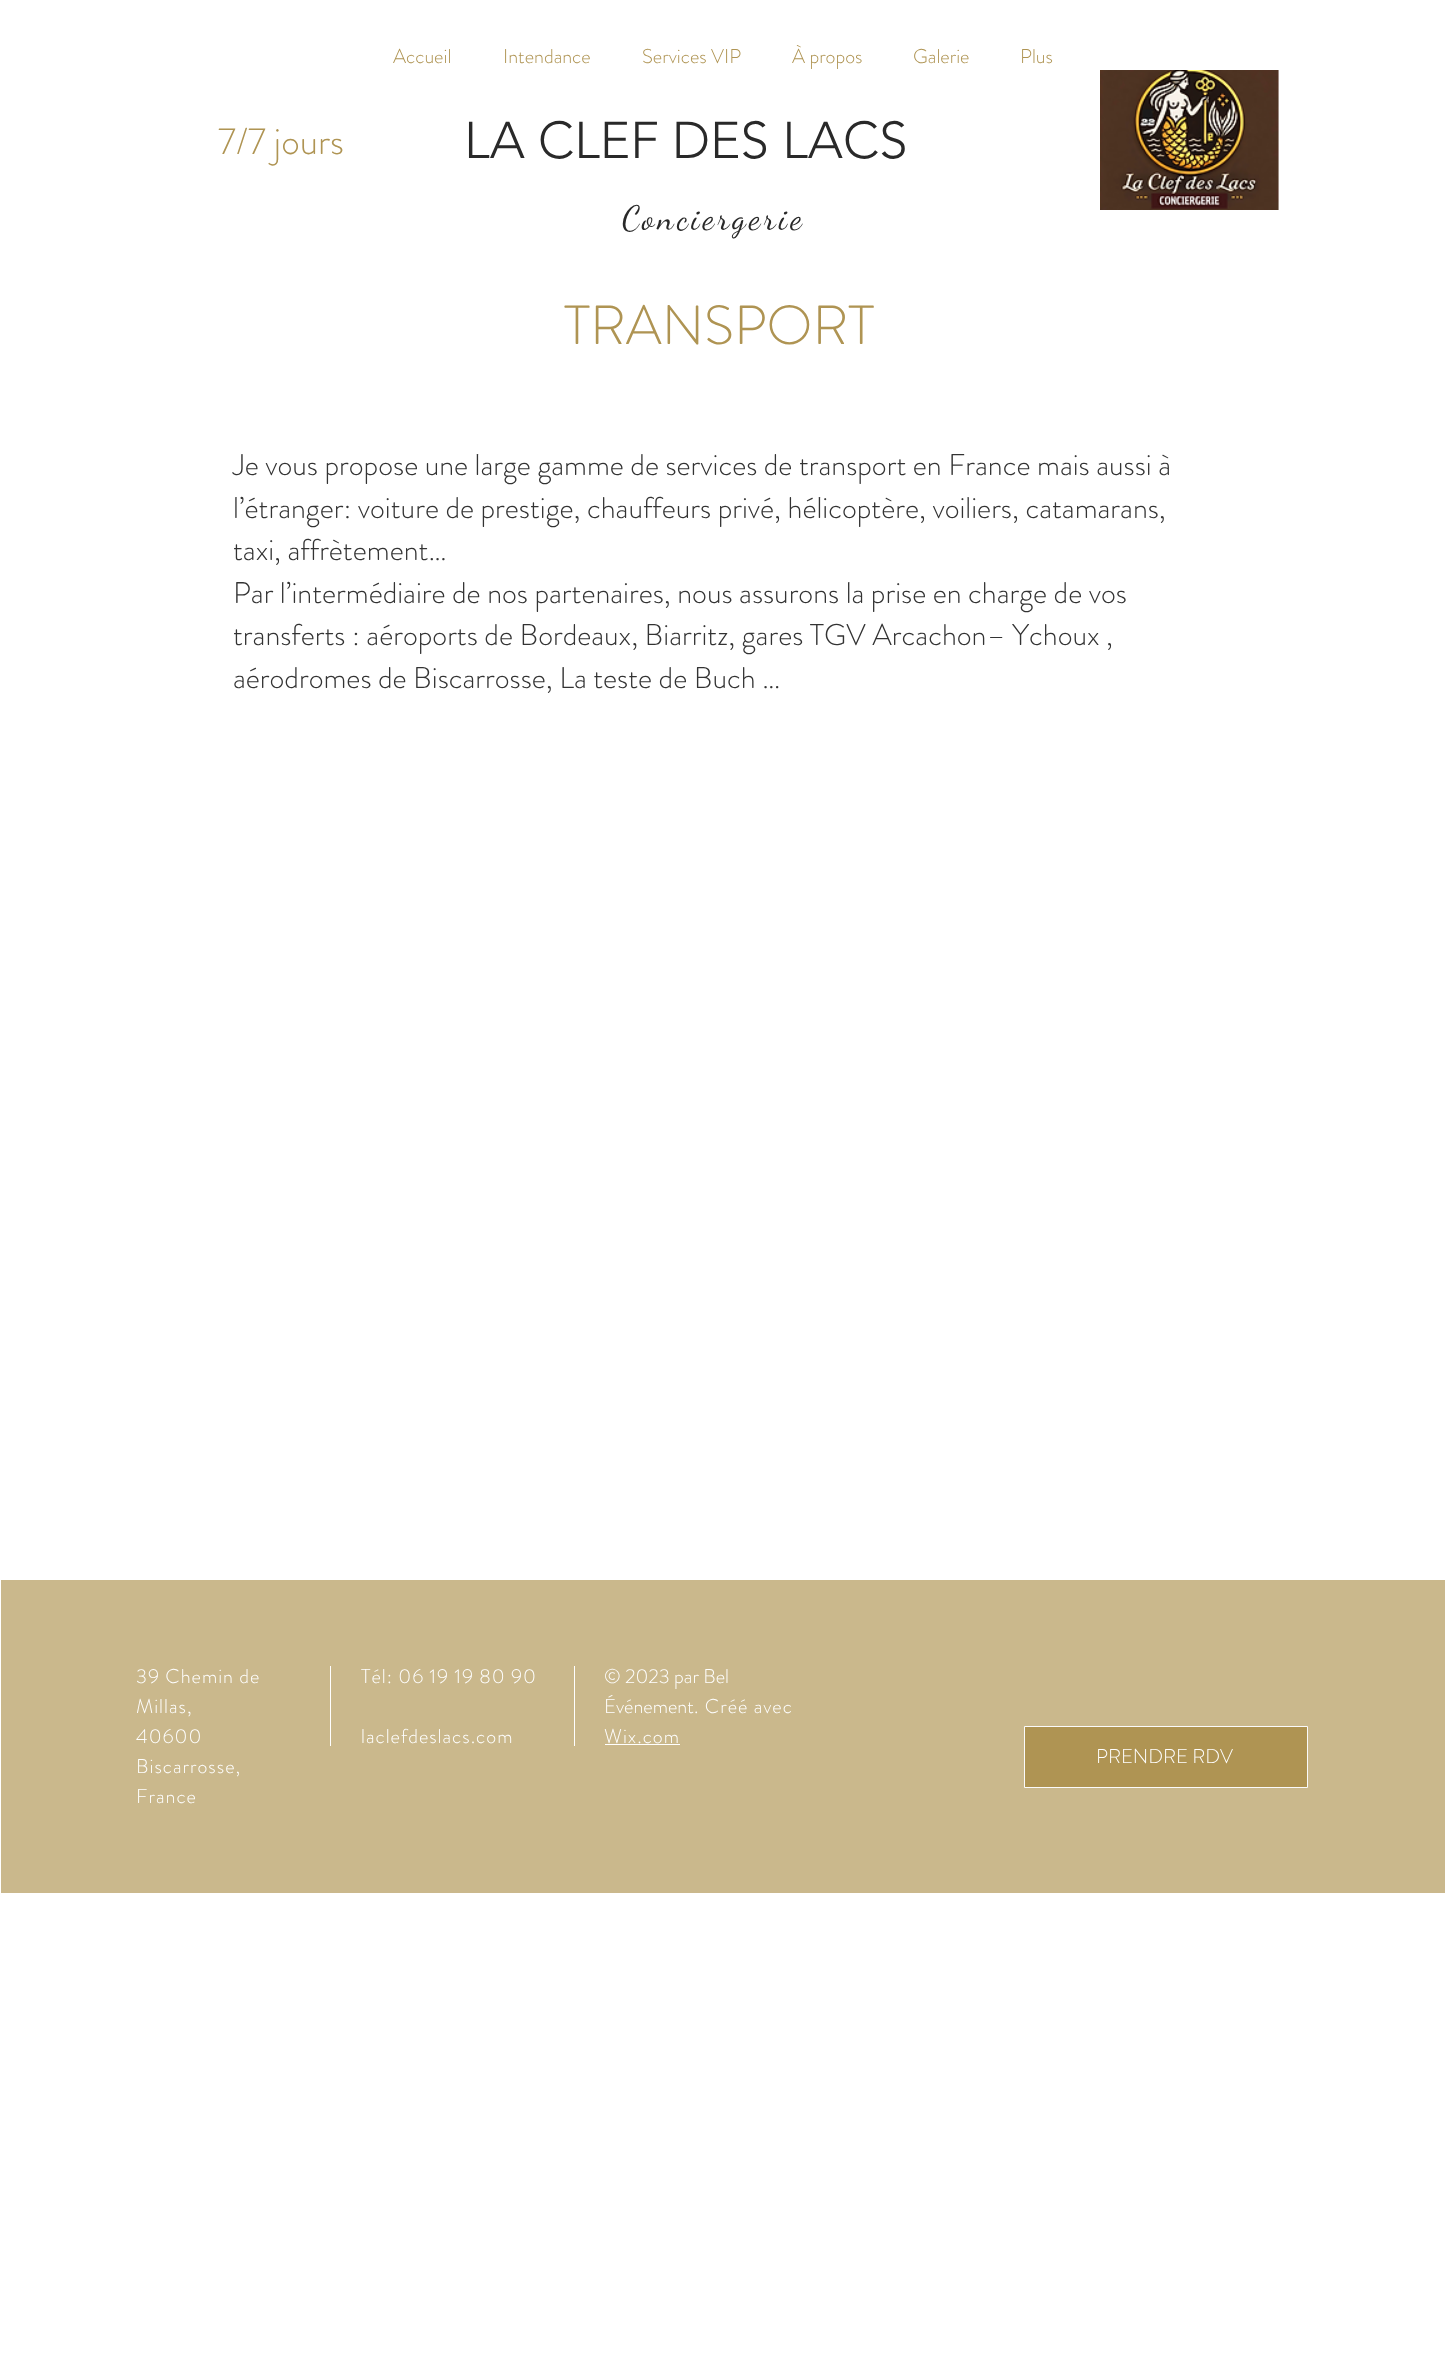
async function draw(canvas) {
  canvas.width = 1446;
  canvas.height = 2364;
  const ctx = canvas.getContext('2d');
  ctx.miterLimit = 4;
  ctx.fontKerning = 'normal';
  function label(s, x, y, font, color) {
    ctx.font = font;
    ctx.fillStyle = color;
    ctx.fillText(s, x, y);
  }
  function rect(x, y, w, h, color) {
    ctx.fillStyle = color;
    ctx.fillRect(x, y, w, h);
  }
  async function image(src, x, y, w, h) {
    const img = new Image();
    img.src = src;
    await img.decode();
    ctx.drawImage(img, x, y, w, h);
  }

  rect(0, 0, 1446, 2364, '#fff');
  label('Accueil', 393, 63, '300 20px "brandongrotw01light"', '#af9453');
  label('Intendance', 503, 63, '300 20px "brandongrotw01light"', '#af9453');
  label('Services VIP', 642, 63, '300 20px "brandongrotw01light"', '#af9453');
  label('À propos', 792, 63, '300 20px "brandongrotw01light"', '#af9453');
  label('Galerie', 913, 63, '300 20px "brandongrotw01light"', '#af9453');
  label('Plus', 1020, 63, '300 20px "brandongrotw01light"', '#af9453');
  label('7/7 jours', 218, 154, '300 37.5px "brandongrotw01light"', '#af9453');
  label('LA CLEF DES LACS', 464, 158, '300 51.25px "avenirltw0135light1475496"', '#292929');
  await image('assets/img1.png', 1100, 70, 179, 140);
  ctx.letterSpacing = '3.4px';
  label('Conciergerie', 622, 229, '33.75px Dancing Script', '#292929');
  ctx.letterSpacing = '0px';
  label('TRANSPORT', 564, 344, '300 55px "brandongrotw01light"', '#af9453');
  label('Je vous propose une large gamme de services de transport en France mais aussi à', 233, 475, '300 30px "brandongrotw01light"', '#333');
  label('l’étranger: voiture de prestige, chauffeurs privé, hélicoptère, voiliers, catamarans,', 233, 518, '300 30px "brandongrotw01light"', '#333');
  label('taxi, affrètement…', 233, 560, '300 30px "brandongrotw01light"', '#333');
  label('Par l’intermédiaire de nos partenaires, nous assurons la prise en charge de vos', 233, 603, '300 30px "brandongrotw01light"', '#333');
  label('transferts : aéroports de Bordeaux, Biarritz, gares TGV Arcachon– Ychoux ,', 233, 645, '300 30px "brandongrotw01light"', '#333');
  label('aérodromes de Biscarrosse, La teste de Buch …', 233, 688, '300 30px "brandongrotw01light"', '#333');
  rect(1, 1580, 1444, 313, '#cab88c');
  ctx.letterSpacing = '1px';
  label('39 Chemin de', 136, 1683, '300 20px "brandongrotw01light"', '#fff');
  label('Millas,', 136, 1713, '300 20px "brandongrotw01light"', '#fff');
  label('40600', 136, 1743, '300 20px "brandongrotw01light"', '#fff');
  label('Biscarrosse,', 136, 1773, '300 20px "brandongrotw01light"', '#fff');
  label('France', 136, 1803, '300 20px "brandongrotw01light"', '#fff');
  rect(330, 1666, 1, 80, '#fff');
  label('Tél: 06 19 19 80 90', 361, 1683, '300 20px "brandongrotw01light"', '#fff');
  label('laclefdeslacs.com', 361, 1743, '300 20px "brandongrotw01light"', '#fff');
  rect(574, 1666, 1, 80, '#fff');
  ctx.letterSpacing = '0px';
  label('© 2023 par Bel', 604, 1683, '300 20px "brandongrotw01light"', '#fff');
  label('Événement', 604, 1713, '300 20px "brandongrotw01light"', '#fff');
  ctx.letterSpacing = '1px';
  label('. Créé avec', 694, 1713, '300 20px "brandongrotw01light"', '#fff');
  label('Wix.com', 604, 1743, '300 20px "brandongrotw01light"', '#fff');
  rect(605, 1744, 75, 1, '#fff');
  ctx.fillStyle = '#af9453';
  ctx.beginPath();
  ctx.rect(1024.5, 1726.5, 283, 61);
  ctx.fill();
  ctx.strokeStyle = '#fbfbfb';
  ctx.stroke();
  ctx.letterSpacing = '0px';
  label('PRENDRE RDV', 1096, 1763, '300 20px "brandongrotw01light"', '#fff');
}

draw(document.querySelector('canvas'));
